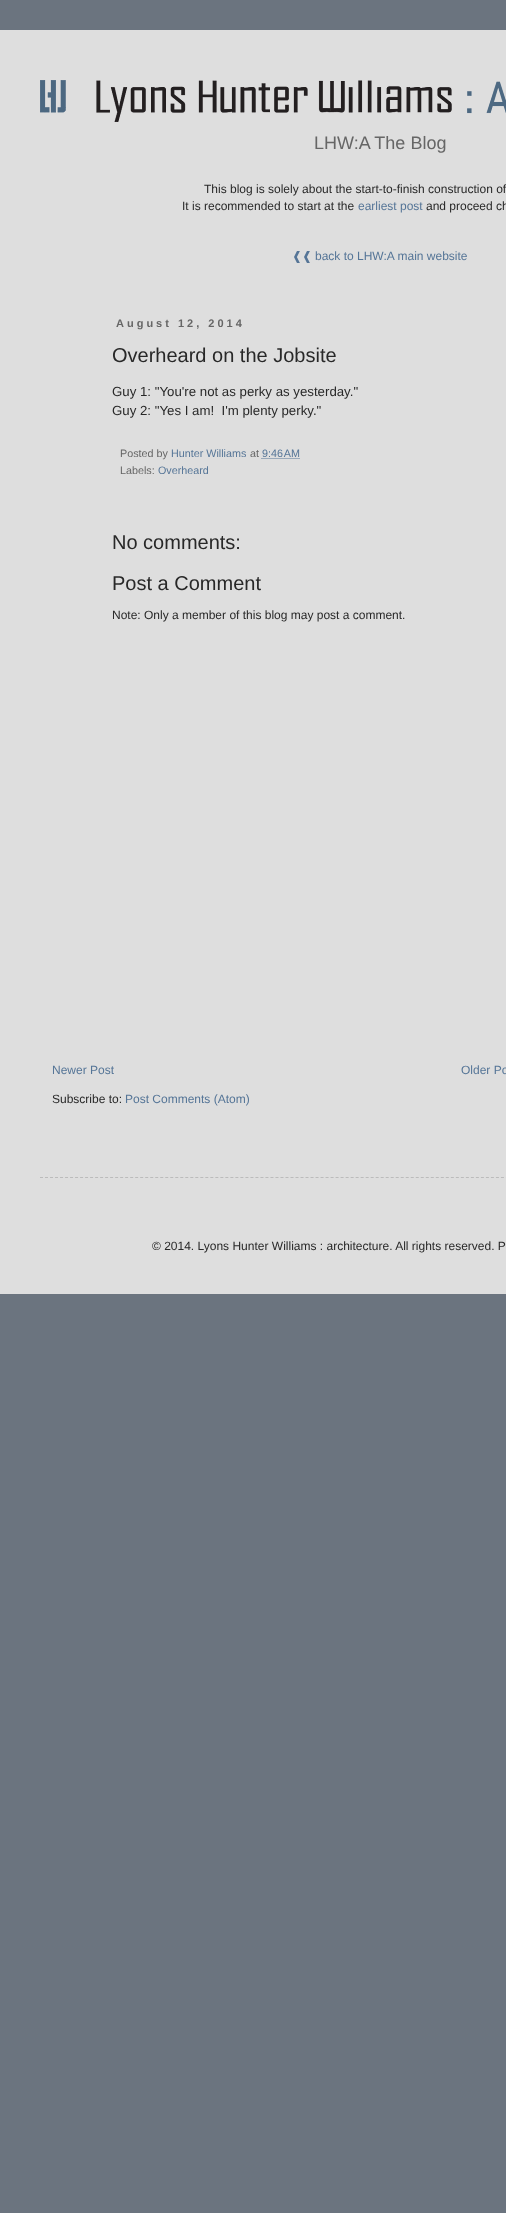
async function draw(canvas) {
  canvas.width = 506;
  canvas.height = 2213;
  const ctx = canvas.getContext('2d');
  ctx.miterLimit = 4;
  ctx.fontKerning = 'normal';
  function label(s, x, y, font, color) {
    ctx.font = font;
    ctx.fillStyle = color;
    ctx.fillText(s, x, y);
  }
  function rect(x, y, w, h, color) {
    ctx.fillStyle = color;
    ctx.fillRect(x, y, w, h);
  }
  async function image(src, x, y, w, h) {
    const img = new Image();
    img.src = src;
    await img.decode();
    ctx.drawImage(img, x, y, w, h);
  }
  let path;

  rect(0, 0, 506, 2213, '#6b747f');
  rect(0, 30, 506, 1264, '#dedede');
  await image('assets/img1.png', 40, 80, 466, 42);
  label('LHW:A The Blog', 314, 149, '18px Arimo', '#666');
  label('This blog is solely about the start-to-finish construction of', 204, 193, '12px Arimo', '#282828');
  label('It is recommended to start at the', 182, 210, '12px Arimo', '#282828');
  label('earliest post', 358, 210, '12px Arimo', '#557597');
  label('and proceed ch', 426, 210, '12px Arimo', '#282828');
  label('❰❰', 292, 260, '12px DejaVu Sans', '#557597');
  label('back to LHW:A main website', 315, 260, '12px Arimo', '#557597');
  ctx.letterSpacing = '3px';
  label('August 12, 2014', 116, 327, 'bold 11px Liberation Sans', '#666');
  ctx.letterSpacing = '0px';
  label('Overheard on the Jobsite', 112, 362, '20px Arimo', '#282828');
  label('Guy 1: "You\'re not as perky as yesterday."', 112, 396, '13.25px Arimo', '#282828');
  label('Guy 2: "Yes I am!  I\'m plenty perky."', 112, 415, '13.25px Arimo', '#282828');
  label('Posted by', 120, 457, '10.75px Arimo', '#666');
  label('Hunter Williams', 171, 457, '10.75px Arimo', '#557597');
  label('at', 250, 457, '10.75px Arimo', '#666');
  label('9:46 AM', 262, 457, '10.75px Arimo', '#557597');
  path = new Path2D('M261.5 458.5H300');
  ctx.strokeStyle = '#557597';
  ctx.setLineDash([1, 1]);
  ctx.stroke(path);
  label('Labels:', 120, 474, '10.75px Arimo', '#666');
  label('Overheard', 158, 474, '10.75px Arimo', '#557597');
  label('No comments:', 112, 549, '20px Arimo', '#282828');
  label('Post a Comment', 112, 590, '20px Arimo', '#282828');
  label('Note: Only a member of this blog may post a comment.', 112, 619, '12px Arimo', '#282828');
  label('Newer Post', 52, 1074, '12px Arimo', '#557597');
  label('Older Po', 461, 1074, '12px Arimo', '#557597');
  label('Subscribe to:', 52, 1103, '12px Arimo', '#282828');
  label('Post Comments (Atom)', 125, 1103, '12px Arimo', '#557597');
  path = new Path2D('M40 1177.5H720');
  ctx.strokeStyle = '#bbb';
  ctx.setLineDash([3, 2.01]);
  ctx.stroke(path);
  label('© 2014. Lyons Hunter Williams : architecture. All rights reserved. P', 152, 1250, '12px Arimo', '#282828');
}

draw(document.querySelector('canvas'));
